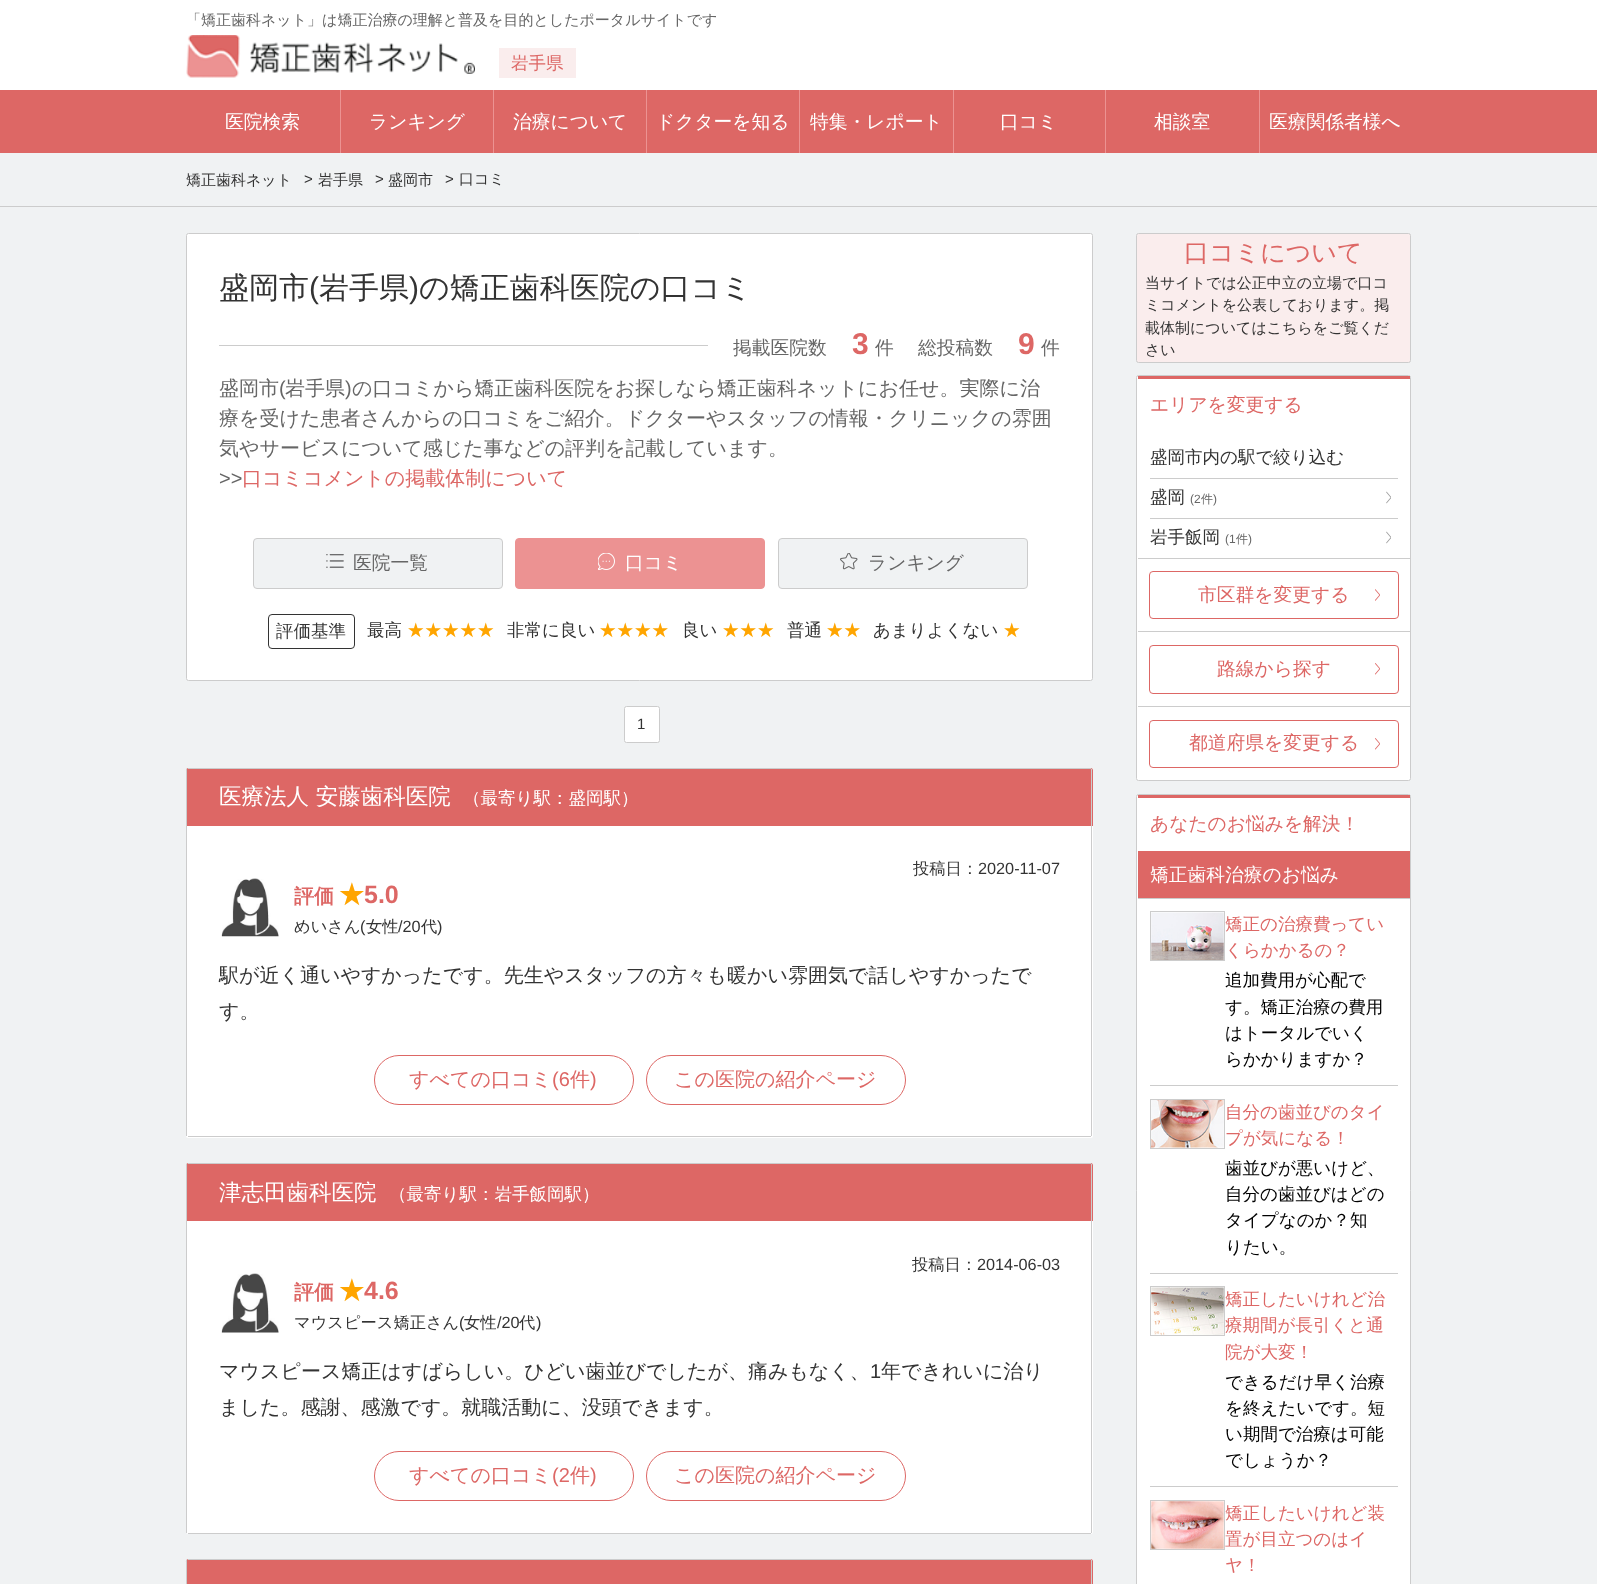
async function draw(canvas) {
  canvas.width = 1597;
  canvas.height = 1584;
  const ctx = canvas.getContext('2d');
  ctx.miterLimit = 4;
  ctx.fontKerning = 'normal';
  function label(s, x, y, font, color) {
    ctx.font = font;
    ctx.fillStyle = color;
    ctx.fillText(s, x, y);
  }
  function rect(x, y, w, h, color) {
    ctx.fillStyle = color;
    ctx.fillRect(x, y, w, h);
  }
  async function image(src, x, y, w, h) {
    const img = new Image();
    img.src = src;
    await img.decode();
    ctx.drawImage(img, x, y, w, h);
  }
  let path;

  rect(0, 0, 1597, 1584, '#f0f2f3');
  rect(0, 0, 1597, 90, '#fff');
  label('「矯正歯科ネット」は矯正治療の理解と普及を目的としたポータルサイトです', 186, 25, '500 15px WenQuanYi Zen Hei', '#666');
  await image('assets/img1.png', 186, 35, 289, 43);
  rect(499, 48, 77, 30, '#faeded');
  label('岩手県', 511, 69, '500 17.5px WenQuanYi Zen Hei', '#dd6765');
  rect(0, 90, 1597, 63, '#dd6765');
  label('医院検索', 225, 128, '500 18.75px WenQuanYi Zen Hei', '#fff');
  rect(340, 90, 1, 63, '#ec9292');
  label('ランキング', 369, 128, '500 18.75px WenQuanYi Zen Hei', '#fff');
  rect(493, 90, 1, 63, '#ec9292');
  label('治療について', 513, 128, '500 18.75px WenQuanYi Zen Hei', '#fff');
  rect(646, 90, 1, 63, '#ec9292');
  label('ドクターを知る', 656, 128, '500 18.75px WenQuanYi Zen Hei', '#fff');
  rect(799, 90, 1, 63, '#ec9292');
  label('特集・レポート', 810, 128, '500 18.75px WenQuanYi Zen Hei', '#fff');
  rect(953, 90, 1, 63, '#ec9292');
  label('口コミ', 1000, 128, '500 18.75px WenQuanYi Zen Hei', '#fff');
  rect(1105, 90, 1, 63, '#ec9292');
  label('相談室', 1154, 128, '500 18.75px WenQuanYi Zen Hei', '#fff');
  rect(1259, 90, 1, 63, '#ec9292');
  label('医療関係者様へ', 1269, 128, '500 18.75px WenQuanYi Zen Hei', '#fff');
  rect(0, 206, 1597, 1, '#ccc');
  label('矯正歯科ネット', 186, 185, '500 15px WenQuanYi Zen Hei', '#333');
  ctx.letterSpacing = '-4px';
  label('>', 304, 184, '15px Liberation Sans', '#333');
  ctx.letterSpacing = '0px';
  label('岩手県', 318, 185, '500 15px WenQuanYi Zen Hei', '#333');
  ctx.letterSpacing = '-4px';
  label('>', 375, 184, '15px Liberation Sans', '#333');
  ctx.letterSpacing = '0px';
  label('盛岡市', 388, 185, '500 15px WenQuanYi Zen Hei', '#333');
  ctx.letterSpacing = '-4px';
  label('>', 445, 184, '15px Liberation Sans', '#333');
  ctx.letterSpacing = '0px';
  label('口コミ', 459, 184, '500 15px WenQuanYi Zen Hei', '#333');
  ctx.fillStyle = '#fff';
  ctx.beginPath();
  ctx.roundRect(186.5, 233.5, 906, 447, 2);
  ctx.fill();
  ctx.strokeStyle = '#ccc';
  ctx.stroke();
  label('盛岡市', 219, 298, '500 30px WenQuanYi Zen Hei', '#333');
  label('(', 309, 298, '30px Liberation Sans', '#333');
  label('岩手県', 319, 298, '500 30px WenQuanYi Zen Hei', '#333');
  label(')', 409, 298, '30px Liberation Sans', '#333');
  label('の矯正歯科医院の口コミ', 419, 298, '500 30px WenQuanYi Zen Hei', '#333');
  rect(219, 345, 489, 1, '#ccc');
  label('掲載医院数', 733, 354, '500 18.75px WenQuanYi Zen Hei', '#666');
  label('3', 852, 354, 'bold 30px Liberation Sans', '#dd6765');
  label('件', 875, 354, '500 18.75px WenQuanYi Zen Hei', '#666');
  label('総投稿数', 918, 354, '500 18.75px WenQuanYi Zen Hei', '#666');
  label('9', 1018, 354, 'bold 30px Liberation Sans', '#dd6765');
  label('件', 1041, 354, '500 18.75px WenQuanYi Zen Hei', '#666');
  label('盛岡市', 219, 395, '500 20px WenQuanYi Zen Hei', '#666');
  label('(', 279, 395, '20px Liberation Sans', '#666');
  label('岩手県', 285, 395, '500 20px WenQuanYi Zen Hei', '#666');
  label(')', 345, 395, '20px Liberation Sans', '#666');
  label('の口コミから矯正歯科医院をお探しなら矯正歯科ネットにお任せ。実際に治', 352, 395, '500 20px WenQuanYi Zen Hei', '#666');
  label('療を受けた患者さんからの口コミをご紹介。ドクターやスタッフの情報・クリニックの雰囲', 219, 425, '500 20px WenQuanYi Zen Hei', '#666');
  label('気やサービスについて感じた事などの評判を記載しています。', 219, 455, '500 20px WenQuanYi Zen Hei', '#666');
  label('>>', 219, 485, '20px Liberation Sans', '#666');
  label('口コミコメントの掲載体制について', 242, 485, '500 20px WenQuanYi Zen Hei', '#dd6765');
  ctx.fillStyle = '#f0f2f3';
  ctx.beginPath();
  ctx.roundRect(253.5, 538.5, 249, 50, 3.5);
  ctx.fill();
  ctx.stroke();
  await image('assets/img2.png', 326, 554, 18, 14);
  label('医院一覧', 353, 569, '500 18.75px WenQuanYi Zen Hei', '#666');
  ctx.fillStyle = '#ec9292';
  ctx.beginPath();
  ctx.roundRect(515.5, 538.5, 249, 50, 3.5);
  ctx.fill();
  ctx.strokeStyle = '#ec9292';
  ctx.stroke();
  await image('assets/img3.png', 598, 553, 17, 17);
  label('口コミ', 625, 569, '500 18.75px WenQuanYi Zen Hei', '#fff');
  ctx.fillStyle = '#f0f2f3';
  ctx.beginPath();
  ctx.roundRect(778.5, 538.5, 249, 50, 3.5);
  ctx.fill();
  ctx.strokeStyle = '#ccc';
  ctx.stroke();
  await image('assets/img4.png', 840, 553, 18, 17);
  label('ランキング', 868, 569, '500 18.75px WenQuanYi Zen Hei', '#666');
  ctx.beginPath();
  ctx.roundRect(268.5, 614.5, 86, 34, 3.5);
  ctx.strokeStyle = '#333';
  ctx.stroke();
  label('評価基準', 276, 637, '500 17.5px WenQuanYi Zen Hei', '#333');
  label('最高', 367, 636, '500 17.5px WenQuanYi Zen Hei', '#333');
  label('★★★★★', 407, 636, '500 17.5px WenQuanYi Zen Hei', '#ffa500');
  label('非常に良い', 507, 636, '500 17.5px WenQuanYi Zen Hei', '#333');
  label('★★★★', 599, 636, '500 17.5px WenQuanYi Zen Hei', '#ffa500');
  label('良い', 682, 636, '500 17.5px WenQuanYi Zen Hei', '#333');
  label('★★★', 722, 636, '500 17.5px WenQuanYi Zen Hei', '#ffa500');
  label('普通', 787, 636, '500 17.5px WenQuanYi Zen Hei', '#333');
  label('★★', 826, 636, '500 17.5px WenQuanYi Zen Hei', '#ffa500');
  label('あまりよくない', 873, 636, '500 17.5px WenQuanYi Zen Hei', '#333');
  label('★', 1003, 636, '500 17.5px WenQuanYi Zen Hei', '#ffa500');
  ctx.fillStyle = '#fff';
  ctx.beginPath();
  ctx.roundRect(624.5, 706.5, 35, 36, 2);
  ctx.fill();
  ctx.strokeStyle = '#ccc';
  ctx.stroke();
  label('1', 637, 729, '15px Liberation Sans', '#333');
  ctx.fillStyle = '#dd6765';
  ctx.beginPath();
  ctx.roundRect(186, 768, 907, 58, [2.5, 2.5, 0, 0]);
  ctx.fill();
  rect(188, 768, 903, 1, '#ccc');
  rect(1091, 769, 1, 57, '#ccc');
  rect(186, 769, 1, 57, '#ccc');
  label('医療法人 安藤歯科医院', 219, 804, '500 22.5px WenQuanYi Zen Hei', '#fff');
  label('（最寄り駅：盛岡駅）', 463, 804, '500 17.5px WenQuanYi Zen Hei', '#fff');
  ctx.beginPath();
  ctx.roundRect(186, 826, 907, 312, [0, 0, 2.5, 2.5]);
  ctx.fill();
  rect(1091, 826, 1, 310, '#ccc');
  rect(188, 1136, 903, 1, '#ccc');
  rect(186, 826, 1, 310, '#ccc');
  await image('assets/img5.png', 221, 878, 58, 59);
  label('投稿日：', 913, 874, '500 16.25px WenQuanYi Zen Hei', '#333');
  label('2020-11-07', 978, 874, '16.25px Liberation Sans', '#333');
  label('めいさん', 294, 932, '500 16.25px WenQuanYi Zen Hei', '#333');
  label('(', 360, 932, '16.25px Liberation Sans', '#333');
  label('女性', 366, 932, '500 16.25px WenQuanYi Zen Hei', '#333');
  label('/20', 398, 932, '16.25px Liberation Sans', '#333');
  label('代', 421, 932, '500 16.25px WenQuanYi Zen Hei', '#333');
  label(')', 437, 932, '16.25px Liberation Sans', '#333');
  label('評価', 294, 903, 'bold 20px WenQuanYi Zen Hei', '#dd6765');
  label('★', 339, 903, 'bold 25px WenQuanYi Zen Hei', '#ffa500');
  label('5.0', 364, 903, 'bold 25px Liberation Sans', '#dd6765');
  label('駅が近く通いやすかったです。先生やスタッフの方々も暖かい雰囲気で話しやすかったで', 219, 982, '500 20px WenQuanYi Zen Hei', '#333');
  label('す。', 219, 1018, '500 20px WenQuanYi Zen Hei', '#333');
  ctx.beginPath();
  ctx.roundRect(374.5, 1055.5, 259, 49, 24.5);
  ctx.strokeStyle = '#dd6765';
  ctx.stroke();
  label('すべての口コミ', 409, 1086, '500 20px WenQuanYi Zen Hei', '#dd6765');
  label('(6', 552, 1086, '20px Liberation Sans', '#dd6765');
  label('件', 570, 1086, '500 20px WenQuanYi Zen Hei', '#dd6765');
  label(')', 590, 1086, '20px Liberation Sans', '#dd6765');
  ctx.beginPath();
  ctx.roundRect(646.5, 1055.5, 259, 49, 24.5);
  ctx.stroke();
  label('この医院の紹介ページ', 674, 1086, '500 20px WenQuanYi Zen Hei', '#dd6765');
  ctx.beginPath();
  ctx.roundRect(186, 1163, 907, 58, [2.5, 2.5, 0, 0]);
  ctx.fill();
  rect(188, 1163, 903, 1, '#ccc');
  rect(1091, 1164, 1, 57, '#ccc');
  rect(186, 1164, 1, 57, '#ccc');
  label('津志田歯科医院', 219, 1200, '500 22.5px WenQuanYi Zen Hei', '#fff');
  label('（最寄り駅：岩手飯岡駅）', 389, 1200, '500 17.5px WenQuanYi Zen Hei', '#fff');
  ctx.beginPath();
  ctx.roundRect(186, 1221, 907, 313, [0, 0, 2.5, 2.5]);
  ctx.fill();
  rect(1091, 1221, 1, 312, '#ccc');
  rect(188, 1533, 903, 1, '#ccc');
  rect(186, 1221, 1, 312, '#ccc');
  await image('assets/img6.png', 221, 1273, 58, 60);
  label('投稿日：', 912, 1270, '500 16.25px WenQuanYi Zen Hei', '#333');
  label('2014-06-03', 977, 1270, '16.25px Liberation Sans', '#333');
  label('マウスピース矯正さん', 294, 1328, '500 16.25px WenQuanYi Zen Hei', '#333');
  label('(', 459, 1328, '16.25px Liberation Sans', '#333');
  label('女性', 464, 1328, '500 16.25px WenQuanYi Zen Hei', '#333');
  label('/20', 497, 1328, '16.25px Liberation Sans', '#333');
  label('代', 519, 1328, '500 16.25px WenQuanYi Zen Hei', '#333');
  label(')', 536, 1328, '16.25px Liberation Sans', '#333');
  label('評価', 294, 1299, 'bold 20px WenQuanYi Zen Hei', '#dd6765');
  label('★', 339, 1299, 'bold 25px WenQuanYi Zen Hei', '#ffa500');
  label('4.6', 364, 1299, 'bold 25px Liberation Sans', '#dd6765');
  label('マウスピース矯正はすばらしい。ひどい歯並びでしたが、痛みもなく、', 219, 1378, '500 20px WenQuanYi Zen Hei', '#333');
  label('1', 870, 1378, '20px Liberation Sans', '#333');
  label('年できれいに治り', 881, 1378, '500 20px WenQuanYi Zen Hei', '#333');
  label('ました。感謝、感激です。就職活動に、没頭できます。', 219, 1414, '500 20px WenQuanYi Zen Hei', '#333');
  ctx.beginPath();
  ctx.roundRect(374.5, 1451.5, 259, 49, 24.5);
  ctx.stroke();
  label('すべての口コミ', 409, 1482, '500 20px WenQuanYi Zen Hei', '#dd6765');
  label('(2', 552, 1482, '20px Liberation Sans', '#dd6765');
  label('件', 570, 1482, '500 20px WenQuanYi Zen Hei', '#dd6765');
  label(')', 590, 1482, '20px Liberation Sans', '#dd6765');
  ctx.beginPath();
  ctx.roundRect(646.5, 1451.5, 259, 49, 24.5);
  ctx.stroke();
  label('この医院の紹介ページ', 674, 1482, '500 20px WenQuanYi Zen Hei', '#dd6765');
  path = new Path2D('M188.5 1559H1090.5C1092 1559 1093 1560 1093 1561.5V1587H186V1561.5C186 1560 187 1559 188.5 1559Z');
  ctx.fill(path);
  rect(188, 1559, 903, 1, '#ccc');
  rect(1091, 1560, 1, 24, '#ccc');
  rect(186, 1560, 1, 24, '#ccc');
  ctx.fillStyle = '#faeded';
  ctx.beginPath();
  ctx.roundRect(1136.5, 233.5, 274, 129, 2);
  ctx.fill();
  ctx.strokeStyle = '#ccc';
  ctx.stroke();
  label('口コミについて', 1184, 261, '500 25px WenQuanYi Zen Hei', '#dd6765');
  label('当サイトでは公正中立の立場で口コ', 1145, 288, '500 15px WenQuanYi Zen Hei', '#333');
  label('ミコメントを公表しております。掲', 1145, 310, '500 15px WenQuanYi Zen Hei', '#333');
  label('載体制についてはこちらをご覧くだ', 1145, 333, '500 15px WenQuanYi Zen Hei', '#333');
  label('さい', 1145, 355, '500 15px WenQuanYi Zen Hei', '#333');
  ctx.fillStyle = '#fff';
  ctx.beginPath();
  ctx.roundRect(1136.5, 375.5, 274, 405, 2);
  ctx.fill();
  ctx.stroke();
  rect(1138, 376, 272, 3, '#dd6765');
  label('エリアを変更する', 1150, 411, '500 18.75px WenQuanYi Zen Hei', '#dd6765');
  rect(1150, 478, 248, 1, '#ccc');
  label('盛岡市内の駅で絞り込む', 1150, 463, '500 17.5px WenQuanYi Zen Hei', '#333');
  rect(1150, 518, 248, 1, '#ccc');
  label('盛岡', 1150, 503, '500 17.5px WenQuanYi Zen Hei', '#333');
  label('(2', 1190, 503, '12px Liberation Sans', '#666');
  label('件', 1201, 503, '500 12px WenQuanYi Zen Hei', '#666');
  label(')', 1213, 503, '12px Liberation Sans', '#666');
  await image('assets/img7.png', 1386, 491, 5, 13);
  label('岩手飯岡', 1150, 543, '500 17.5px WenQuanYi Zen Hei', '#333');
  label('(1', 1225, 543, '12px Liberation Sans', '#666');
  label('件', 1236, 543, '500 12px WenQuanYi Zen Hei', '#666');
  label(')', 1248, 543, '12px Liberation Sans', '#666');
  await image('assets/img7.png', 1386, 531, 5, 13);
  rect(1138, 558, 272, 1, '#ccc');
  ctx.beginPath();
  ctx.roundRect(1149.5, 571.5, 249, 47, 3.5);
  ctx.strokeStyle = '#dd6765';
  ctx.stroke();
  label('市区群を変更する', 1198, 601, '500 18.75px WenQuanYi Zen Hei', '#dd6765');
  await image('assets/img8.png', 1375, 589, 5, 12);
  rect(1138, 631, 272, 1, '#ccc');
  ctx.beginPath();
  ctx.roundRect(1149.5, 645.5, 249, 48, 3.5);
  ctx.stroke();
  label('路線から探す', 1217, 675, '500 18.75px WenQuanYi Zen Hei', '#dd6765');
  await image('assets/img9.png', 1375, 663, 5, 12);
  rect(1138, 706, 272, 1, '#ccc');
  ctx.beginPath();
  ctx.roundRect(1149.5, 720.5, 249, 47, 3.5);
  ctx.stroke();
  label('都道府県を変更する', 1189, 749, '500 18.75px WenQuanYi Zen Hei', '#dd6765');
  await image('assets/img9.png', 1375, 738, 5, 12);
  ctx.fillStyle = '#fff';
  ctx.beginPath();
  ctx.roundRect(1136.5, 794.5, 274, 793, 2);
  ctx.fill();
  ctx.strokeStyle = '#ccc';
  ctx.stroke();
  rect(1138, 795, 272, 3, '#dd6765');
  label('あなたのお悩みを解決！', 1150, 830, '500 18.75px WenQuanYi Zen Hei', '#dd6765');
  rect(1138, 851, 272, 47, '#dd6765');
  rect(1138, 898, 272, 1, '#ccc');
  label('矯正歯科治療のお悩み', 1150, 881, '500 18.75px WenQuanYi Zen Hei', '#fff');
  rect(1150, 1085, 248, 1, '#ccc');
  ctx.strokeRect(1150.5, 911.5, 74, 49);
  await image('assets/img10.png', 1151, 912, 73, 48);
  label('矯正の治療費ってい', 1225, 930, '500 17.5px WenQuanYi Zen Hei', '#dd6765');
  label('くらかかるの？', 1225, 956, '500 17.5px WenQuanYi Zen Hei', '#dd6765');
  label('追加費用が心配で', 1225, 986, '500 17.5px WenQuanYi Zen Hei', '#000');
  label('す。矯正治療の費用', 1225, 1013, '500 17.5px WenQuanYi Zen Hei', '#000');
  label('はトータルでいく', 1225, 1039, '500 17.5px WenQuanYi Zen Hei', '#000');
  label('らかかりますか？', 1225, 1065, '500 17.5px WenQuanYi Zen Hei', '#000');
  rect(1150, 1273, 248, 1, '#ccc');
  ctx.strokeRect(1150.5, 1099.5, 74, 49);
  await image('assets/img11.png', 1151, 1100, 73, 48);
  label('自分の歯並びのタイ', 1225, 1118, '500 17.5px WenQuanYi Zen Hei', '#dd6765');
  label('プが気になる！', 1225, 1144, '500 17.5px WenQuanYi Zen Hei', '#dd6765');
  label('歯並びが悪いけど、', 1225, 1174, '500 17.5px WenQuanYi Zen Hei', '#000');
  label('自分の歯並びはどの', 1225, 1200, '500 17.5px WenQuanYi Zen Hei', '#000');
  label('タイプなのか？知', 1225, 1226, '500 17.5px WenQuanYi Zen Hei', '#000');
  label('りたい。', 1225, 1253, '500 17.5px WenQuanYi Zen Hei', '#000');
  rect(1150, 1486, 248, 1, '#ccc');
  ctx.strokeRect(1150.5, 1286.5, 74, 49);
  await image('assets/img12.png', 1151, 1287, 73, 48);
  label('矯正したいけれど治', 1225, 1305, '500 17.5px WenQuanYi Zen Hei', '#dd6765');
  label('療期間が長引くと通', 1225, 1331, '500 17.5px WenQuanYi Zen Hei', '#dd6765');
  label('院が大変！', 1225, 1358, '500 17.5px WenQuanYi Zen Hei', '#dd6765');
  label('できるだけ早く治療', 1225, 1388, '500 17.5px WenQuanYi Zen Hei', '#000');
  label('を終えたいです。短', 1225, 1414, '500 17.5px WenQuanYi Zen Hei', '#000');
  label('い期間で治療は可能', 1225, 1440, '500 17.5px WenQuanYi Zen Hei', '#000');
  label('でしょうか？', 1225, 1466, '500 17.5px WenQuanYi Zen Hei', '#000');
  ctx.strokeRect(1150.5, 1500.5, 74, 49);
  await image('assets/img13.png', 1151, 1501, 73, 48);
  label('矯正したいけれど装', 1225, 1519, '500 17.5px WenQuanYi Zen Hei', '#dd6765');
  label('置が目立つのはイ', 1225, 1545, '500 17.5px WenQuanYi Zen Hei', '#dd6765');
  label('ヤ！', 1225, 1571, '500 17.5px WenQuanYi Zen Hei', '#dd6765');
}

draw(document.querySelector('canvas'));
